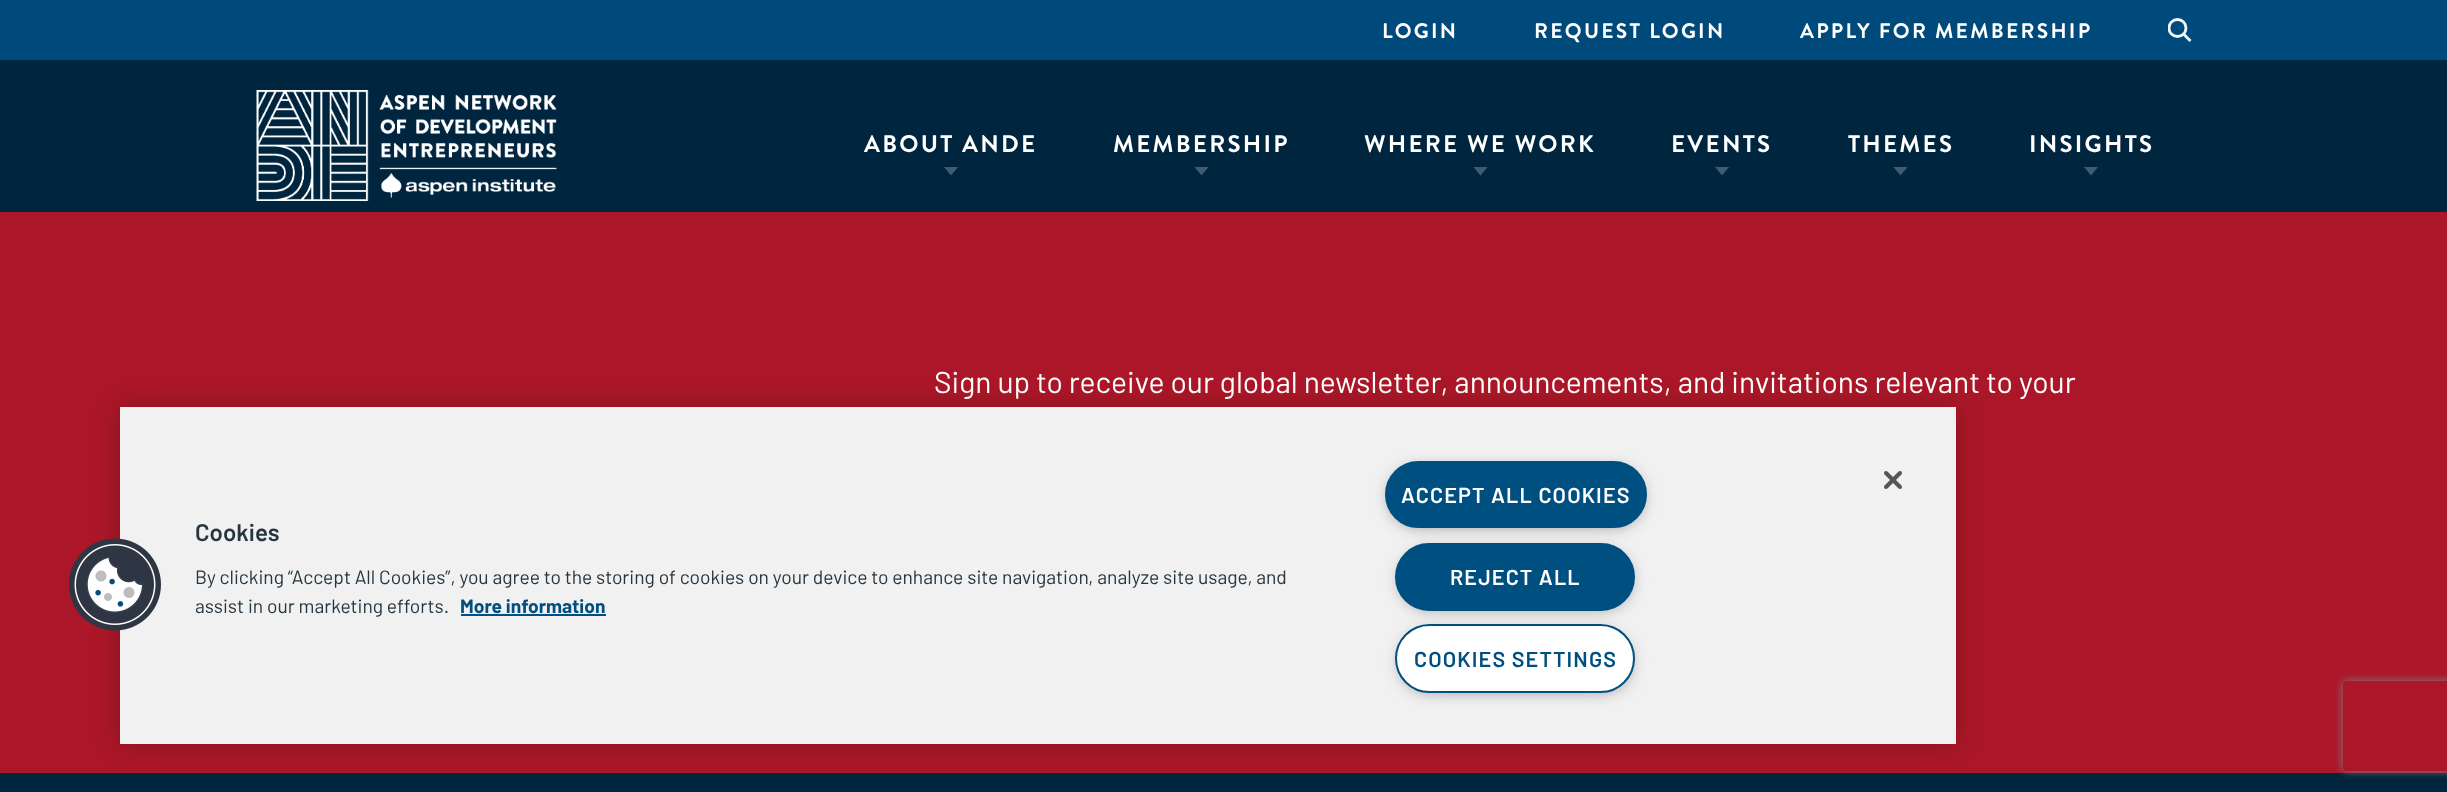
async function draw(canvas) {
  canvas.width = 2447;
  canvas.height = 792;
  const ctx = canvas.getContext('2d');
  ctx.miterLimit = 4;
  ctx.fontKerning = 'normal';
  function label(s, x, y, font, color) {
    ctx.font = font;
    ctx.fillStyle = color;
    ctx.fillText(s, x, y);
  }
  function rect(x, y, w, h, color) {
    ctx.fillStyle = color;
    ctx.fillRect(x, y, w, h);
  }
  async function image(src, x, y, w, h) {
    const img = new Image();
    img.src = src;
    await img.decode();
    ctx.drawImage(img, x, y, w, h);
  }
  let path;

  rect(0, 0, 2447, 792, '#ab1728');
  rect(0, 0, 2447, 60, '#00497b');
  ctx.letterSpacing = '2.25px';
  label('LOGIN', 1382, 38, 'bold 21px Brandon Grotesque', '#fff');
  label('REQUEST LOGIN', 1534, 38, 'bold 21px Brandon Grotesque', '#fff');
  label('APPLY FOR MEMBERSHIP', 1800, 38, 'bold 21px Brandon Grotesque', '#fff');
  ctx.save();
  ctx.beginPath();
  ctx.rect(2168, 18, 24, 24);
  ctx.clip();
  ctx.beginPath();
  ctx.arc(2177.5, 28, 8.5, 0, 2 * Math.PI);
  ctx.strokeStyle = '#f0f7f9';
  ctx.lineWidth = 2.8;
  ctx.stroke();
  ctx.restore();
  path = new Path2D('M2184.5 35L2189.5 40');
  ctx.strokeStyle = '#f0f7f9';
  ctx.lineWidth = 2.8;
  ctx.lineCap = 'square';
  ctx.stroke(path);
  rect(0, 60, 2447, 152, '#00253e');
  await image('assets/img1.png', 256, 90, 301, 111);
  label('ABOUT ANDE', 864, 152, 'bold 24px Brandon Grotesque', '#fff');
  ctx.save();
  ctx.beginPath();
  ctx.rect(944, 167, 15, 9);
  ctx.clip();
  ctx.fillStyle = '#405c6e';
  path = new Path2D('M951 175.5L958.5 166.5H943.5Z');
  ctx.fill(path, 'evenodd');
  ctx.restore();
  label('MEMBERSHIP', 1113, 152, 'bold 24px Brandon Grotesque', '#fff');
  ctx.save();
  ctx.beginPath();
  ctx.rect(1194, 167, 15, 9);
  ctx.clip();
  ctx.fillStyle = '#405c6e';
  path = new Path2D('M1201.5 175.5L1209 166.5H1194Z');
  ctx.fill(path, 'evenodd');
  ctx.restore();
  label('WHERE WE WORK', 1364, 152, 'bold 24px Brandon Grotesque', '#fff');
  ctx.save();
  ctx.beginPath();
  ctx.rect(1473, 167, 15, 9);
  ctx.clip();
  ctx.fillStyle = '#405c6e';
  path = new Path2D('M1480.5 175.5L1488 166.5H1473Z');
  ctx.fill(path, 'evenodd');
  ctx.restore();
  label('EVENTS', 1671, 152, 'bold 24px Brandon Grotesque', '#fff');
  ctx.save();
  ctx.beginPath();
  ctx.rect(1715, 167, 15, 9);
  ctx.clip();
  ctx.fillStyle = '#405c6e';
  path = new Path2D('M1722 175.5L1729.5 166.5H1714.5Z');
  ctx.fill(path, 'evenodd');
  ctx.restore();
  label('THEMES', 1848, 152, 'bold 24px Brandon Grotesque', '#fff');
  ctx.save();
  ctx.beginPath();
  ctx.rect(1893, 167, 15, 9);
  ctx.clip();
  ctx.fillStyle = '#405c6e';
  path = new Path2D('M1900.5 175.5L1908 166.5H1893Z');
  ctx.fill(path, 'evenodd');
  ctx.restore();
  label('INSIGHTS', 2029, 152, 'bold 24px Brandon Grotesque', '#fff');
  ctx.save();
  ctx.beginPath();
  ctx.rect(2084, 167, 15, 9);
  ctx.clip();
  ctx.fillStyle = '#405c6e';
  path = new Path2D('M2091 175.5L2098.5 166.5H2083.5Z');
  ctx.fill(path, 'evenodd');
  ctx.restore();
  ctx.letterSpacing = '0px';
  label('Sign up to receive our global newsletter, announcements, and invitations relevant to your', 934, 393, '30px Barlow', '#fff');
  rect(0, 773, 2447, 19, '#00253e');
  ctx.fillStyle = '#00000033';
  ctx.filter = 'blur(13.5px)';
  ctx.beginPath();
  ctx.rect(120, 407, 1836, 337);
  ctx.fill();
  ctx.filter = 'none';
  rect(120, 407, 1836, 337, '#f1f1f1');
  await image('assets/img2.png', 69, 538, 92, 93);
  await image('assets/img3.png', 1884, 471, 18, 18);
  label('Cookies', 195, 541, '600 24px Barlow', '#263640');
  label('By clicking “Accept All Cookies”, you agree to the storing of cookies on your device to enhance site navigation, analyze site usage, and', 195, 584, '19.2px Barlow', '#263640');
  label('assist in our marketing efforts.', 195, 613, '19.2px Barlow', '#263640');
  label('More information', 460, 613, 'bold 19.2px Barlow', '#004f81');
  rect(461, 614, 145, 2, '#004f81');
  ctx.fillStyle = '#999';
  ctx.filter = 'blur(7.5px)';
  ctx.beginPath();
  ctx.roundRect(1389, 468, 254, 59, 29.5);
  ctx.fill();
  ctx.filter = 'none';
  ctx.fillStyle = '#004f81';
  ctx.beginPath();
  ctx.roundRect(1386, 462, 260, 65, 32.5);
  ctx.fill();
  ctx.strokeStyle = '#004f81';
  ctx.lineWidth = 2;
  ctx.stroke();
  ctx.letterSpacing = '1.1px';
  label('ACCEPT ALL COOKIES', 1401, 503, '600 21.6px Barlow', '#fff');
  ctx.fillStyle = '#999';
  ctx.filter = 'blur(7.5px)';
  ctx.beginPath();
  ctx.roundRect(1400, 551, 231, 58, 29);
  ctx.fill();
  ctx.filter = 'none';
  ctx.fillStyle = '#004f81';
  ctx.beginPath();
  ctx.roundRect(1396, 544, 238, 66, 33);
  ctx.fill();
  ctx.stroke();
  label('REJECT ALL', 1450, 585, '600 21.6px Barlow', '#fff');
  ctx.fillStyle = '#999';
  ctx.filter = 'blur(7.5px)';
  ctx.beginPath();
  ctx.roundRect(1400, 632, 231, 60, 30);
  ctx.fill();
  ctx.filter = 'none';
  ctx.fillStyle = '#fff';
  ctx.beginPath();
  ctx.roundRect(1396, 625, 238, 67, 33.5);
  ctx.fill();
  ctx.stroke();
  label('COOKIES SETTINGS', 1414, 667, '600 21.6px Barlow', '#004f81');
  ctx.save();
  path = new Path2D('M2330 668H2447V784H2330ZM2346 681H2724C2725.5 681 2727 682.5 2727 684V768C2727 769.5 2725.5 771 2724 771H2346C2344.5 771 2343 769.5 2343 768V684C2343 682.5 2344.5 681 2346 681Z');
  ctx.clip(path, 'evenodd');
  ctx.fillStyle = '#808080';
  ctx.filter = 'blur(4px)';
  ctx.beginPath();
  ctx.roundRect(2343, 681, 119, 90, 3);
  ctx.fill();
  ctx.filter = 'none';
  ctx.restore();
}

draw(document.querySelector('canvas'));
